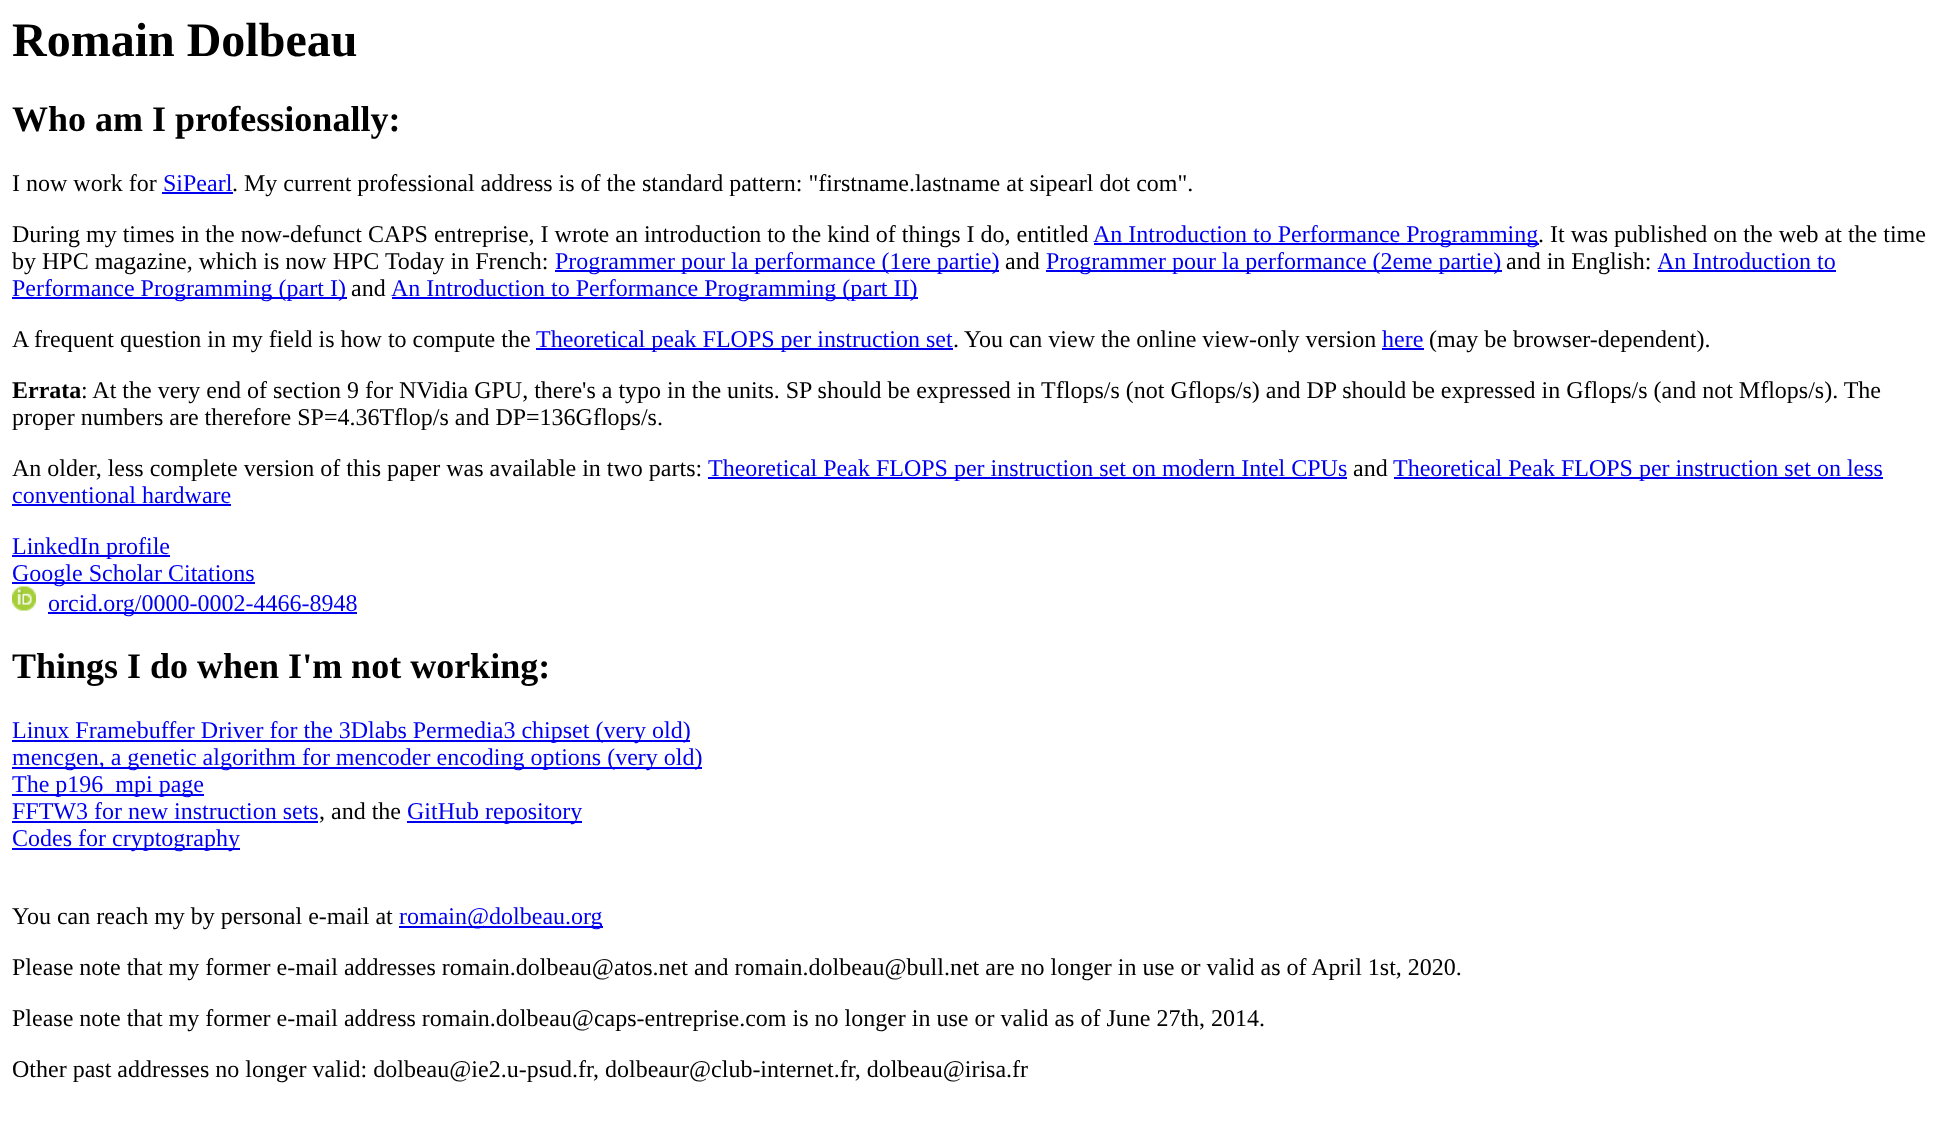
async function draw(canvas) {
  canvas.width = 1945;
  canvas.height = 1145;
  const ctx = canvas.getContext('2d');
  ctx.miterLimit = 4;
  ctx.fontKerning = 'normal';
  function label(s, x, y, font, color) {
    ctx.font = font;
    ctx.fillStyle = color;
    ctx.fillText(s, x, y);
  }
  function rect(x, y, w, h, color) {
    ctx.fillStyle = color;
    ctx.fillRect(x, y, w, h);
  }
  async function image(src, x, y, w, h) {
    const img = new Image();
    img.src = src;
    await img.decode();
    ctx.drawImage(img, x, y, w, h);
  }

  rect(0, 0, 1945, 1145, '#fff');
  label('Romain Dolbeau', 12, 56, 'bold 48px Liberation Serif', '#000');
  label('Who am I professionally:', 12, 131, 'bold 36px Liberation Serif', '#000');
  label('I now work for', 12, 191, '24px Liberation Serif', '#000');
  label('SiPearl', 163, 191, '24px Liberation Serif', '#00e');
  rect(162, 192, 71, 2, '#00e');
  label('. My current professional address is of the standard pattern: "firstname.lastname at sipearl dot com".', 232, 191, '24px Liberation Serif', '#000');
  label('During my times in the now-defunct CAPS entreprise, I wrote an introduction to the kind of things I do, entitled', 12, 242, '24px Liberation Serif', '#000');
  rect(1094, 243, 445, 2, '#00e');
  label('An Introduction to Performance Programming', 1093, 242, '24px Liberation Serif', '#00e');
  label('. It was published on the web at the time', 1538, 242, '24px Liberation Serif', '#000');
  label('by HPC magazine, which is now HPC Today in French:', 12, 269, '24px Liberation Serif', '#000');
  rect(555, 270, 444, 2, '#00e');
  label('Programmer pour la performance (1ere partie)', 555, 269, '24px Liberation Serif', '#00e');
  label('and', 1005, 269, '24px Liberation Serif', '#000');
  rect(1046, 270, 456, 2, '#00e');
  label('Programmer pour la performance (2eme partie)', 1046, 269, '24px Liberation Serif', '#00e');
  label('and in English:', 1506, 269, '24px Liberation Serif', '#000');
  label('An Introduction to', 1657, 269, '24px Liberation Serif', '#00e');
  rect(1658, 270, 178, 2, '#00e');
  rect(12, 297, 335, 2, '#00e');
  label('Performance Programming (part I)', 12, 296, '24px Liberation Serif', '#00e');
  label('and', 351, 296, '24px Liberation Serif', '#000');
  rect(392, 297, 526, 2, '#00e');
  label('An Introduction to Performance Programming (part II)', 391, 296, '24px Liberation Serif', '#00e');
  label('A frequent question in my field is how to compute the', 12, 347, '24px Liberation Serif', '#000');
  rect(536, 348, 417, 2, '#00e');
  label('Theoretical peak FLOPS per instruction set', 536, 347, '24px Liberation Serif', '#00e');
  label('. You can view the online view-only version', 953, 347, '24px Liberation Serif', '#000');
  label('here', 1382, 347, '24px Liberation Serif', '#00e');
  rect(1382, 348, 42, 2, '#00e');
  label('(may be browser-dependent).', 1429, 347, '24px Liberation Serif', '#000');
  label('Errata', 12, 398, 'bold 24px Liberation Serif', '#000');
  label(': At the very end of section 9 for NVidia GPU, there\'s a typo in the units. SP should be expressed in Tflops/s (not Gflops/s) and DP should be expressed in Gflops/s (and not Mflops/s). The', 81, 398, '24px Liberation Serif', '#000');
  label('proper numbers are therefore SP=4.36Tflop/s and DP=136Gflops/s.', 12, 425, '24px Liberation Serif', '#000');
  label('An older, less complete version of this paper was available in two parts:', 12, 476, '24px Liberation Serif', '#000');
  rect(708, 477, 639, 2, '#00e');
  label('Theoretical Peak FLOPS per instruction set on modern Intel CPUs', 708, 476, '24px Liberation Serif', '#00e');
  label('and', 1353, 476, '24px Liberation Serif', '#000');
  rect(1394, 477, 489, 2, '#00e');
  label('Theoretical Peak FLOPS per instruction set on less', 1393, 476, '24px Liberation Serif', '#00e');
  label('conventional hardware', 12, 503, '24px Liberation Serif', '#00e');
  rect(12, 504, 219, 2, '#00e');
  rect(12, 555, 158, 2, '#00e');
  label('LinkedIn profile', 12, 554, '24px Liberation Serif', '#00e');
  rect(12, 582, 243, 2, '#00e');
  label('Google Scholar Citations', 12, 581, '24px Liberation Serif', '#00e');
  await image('assets/img1.png', 12, 586, 24, 25);
  rect(48, 612, 309, 2, '#00e');
  label('orcid.org/0000-0002-4466-8948', 48, 611, '24px Liberation Serif', '#00e');
  label('Things I do when I\'m not working:', 12, 678, 'bold 36px Liberation Serif', '#000');
  rect(12, 740, 678, 2, '#00e');
  label('Linux Framebuffer Driver for the 3Dlabs Permedia3 chipset (very old)', 12, 738, '24px Liberation Serif', '#00e');
  rect(12, 767, 690, 2, '#00e');
  label('mencgen, a genetic algorithm for mencoder encoding options (very old)', 12, 765, '24px Liberation Serif', '#00e');
  rect(12, 794, 192, 2, '#00e');
  label('The p196_mpi page', 12, 792, '24px Liberation Serif', '#00e');
  label('FFTW3 for new instruction sets', 12, 819, '24px Liberation Serif', '#00e');
  rect(12, 821, 306, 2, '#00e');
  label(', and the', 319, 819, '24px Liberation Serif', '#000');
  rect(407, 821, 175, 2, '#00e');
  label('GitHub repository', 407, 819, '24px Liberation Serif', '#00e');
  rect(12, 848, 228, 2, '#00e');
  label('Codes for cryptography', 12, 846, '24px Liberation Serif', '#00e');
  label('You can reach my by personal e-mail at', 12, 924, '24px Liberation Serif', '#000');
  rect(399, 926, 204, 2, '#00e');
  label('romain@dolbeau.org', 399, 924, '24px Liberation Serif', '#00e');
  label('Please note that my former e-mail addresses romain.dolbeau@atos.net and romain.dolbeau@bull.net are no longer in use or valid as of April 1st, 2020.', 12, 975, '24px Liberation Serif', '#000');
  label('Please note that my former e-mail address romain.dolbeau@caps-entreprise.com is no longer in use or valid as of June 27th, 2014.', 12, 1026, '24px Liberation Serif', '#000');
  label('Other past addresses no longer valid: dolbeau@ie2.u-psud.fr, dolbeaur@club-internet.fr, dolbeau@irisa.fr', 12, 1077, '24px Liberation Serif', '#000');
}

draw(document.querySelector('canvas'));
